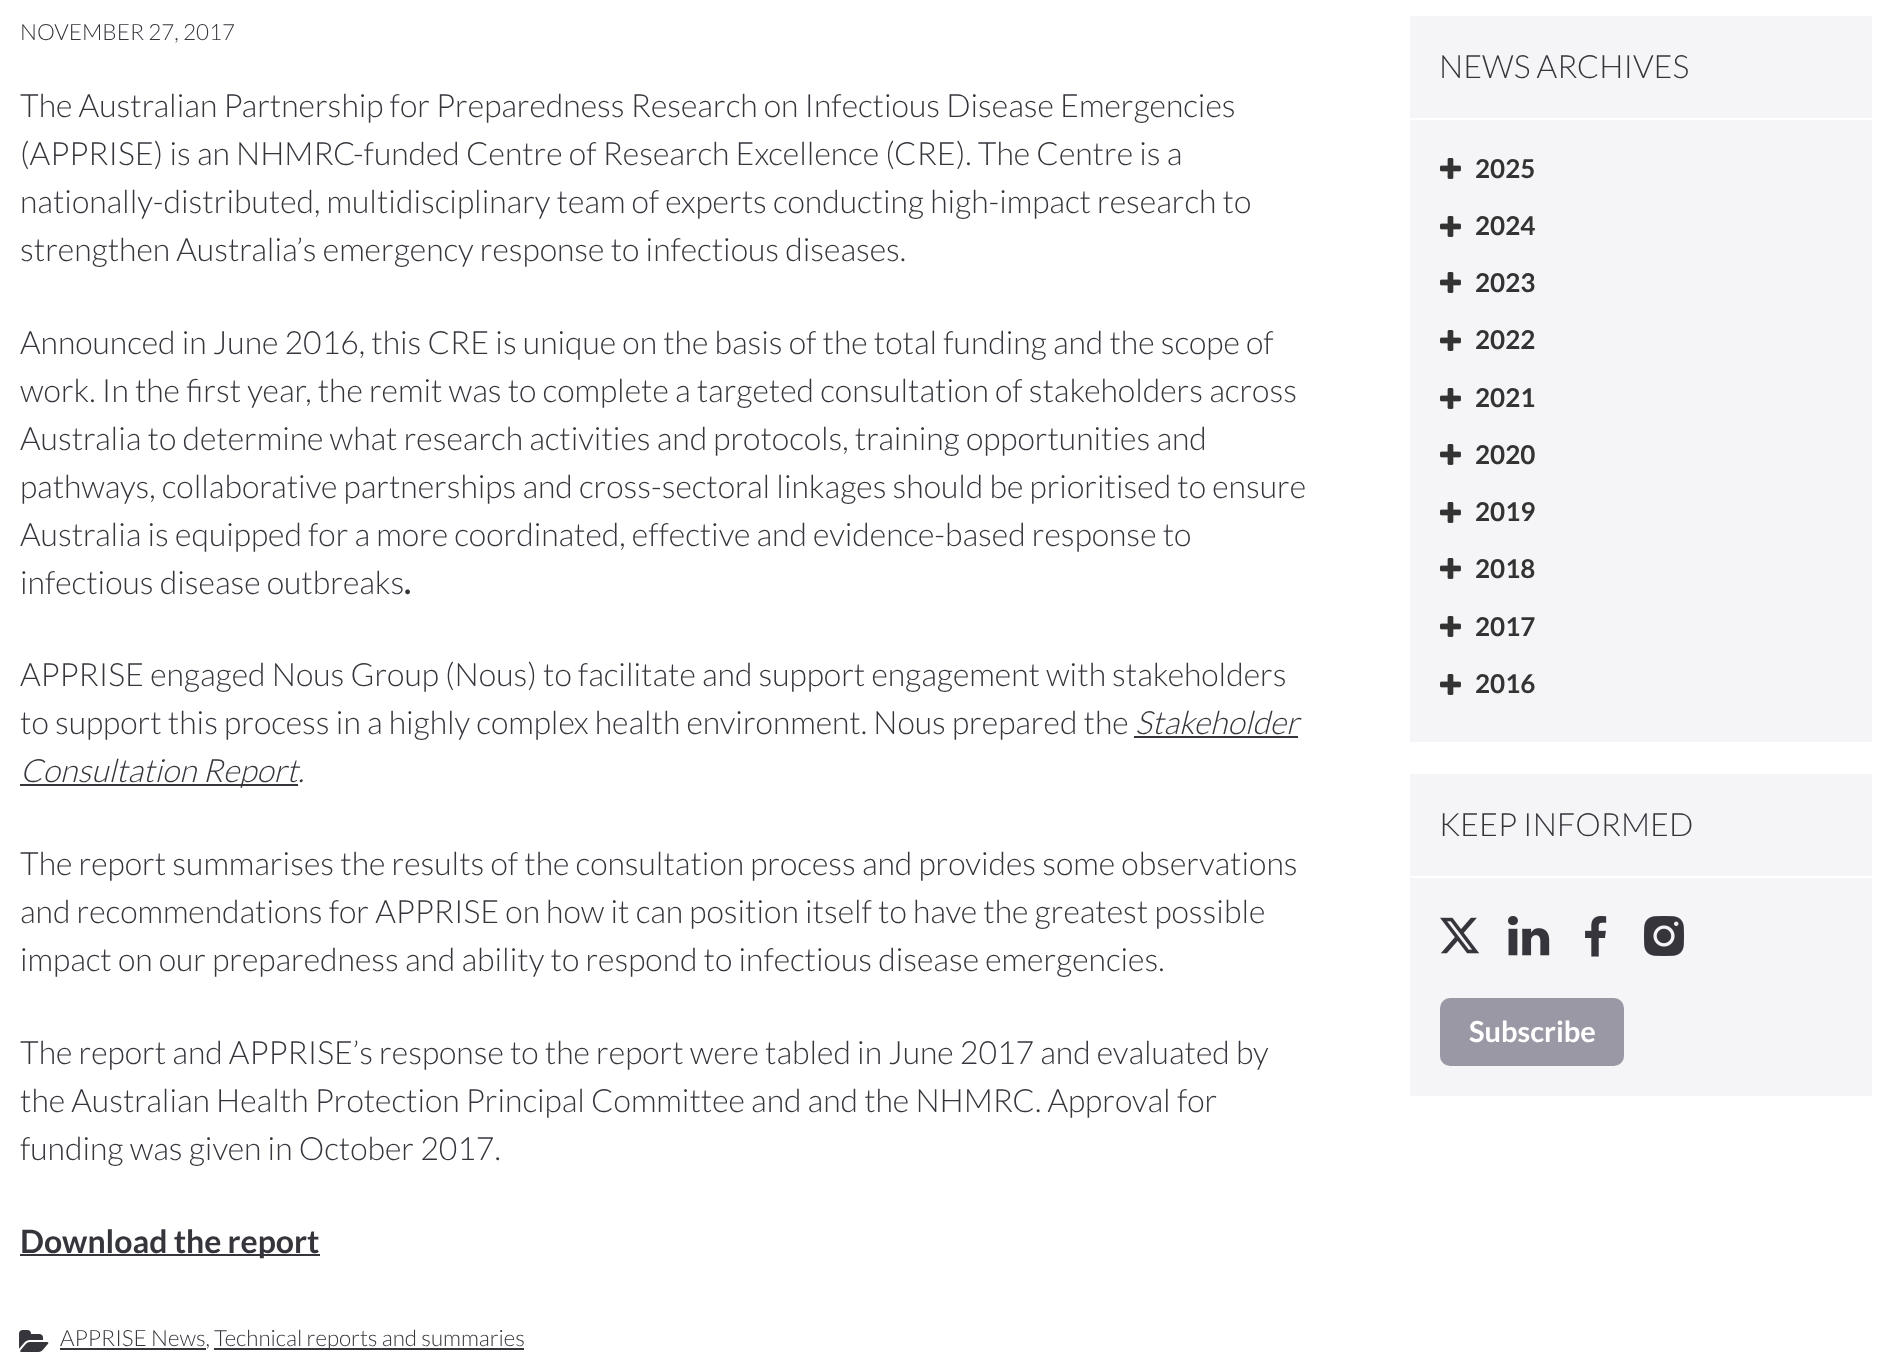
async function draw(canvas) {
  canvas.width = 1891;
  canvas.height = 1363;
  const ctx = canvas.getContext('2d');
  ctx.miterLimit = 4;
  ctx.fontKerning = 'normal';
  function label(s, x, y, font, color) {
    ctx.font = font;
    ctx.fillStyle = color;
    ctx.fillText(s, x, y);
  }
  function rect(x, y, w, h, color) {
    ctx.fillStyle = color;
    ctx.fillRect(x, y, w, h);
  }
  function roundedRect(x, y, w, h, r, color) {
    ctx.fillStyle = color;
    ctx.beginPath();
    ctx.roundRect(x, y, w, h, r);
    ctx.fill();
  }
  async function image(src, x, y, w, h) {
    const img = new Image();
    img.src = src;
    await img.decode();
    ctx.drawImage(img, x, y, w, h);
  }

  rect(0, 0, 1891, 1363, '#fff');
  label('NOVEMBER 27, 2017', 20, 40, '300 22.4px Lato', '#36353c');
  label('The Australian Partnership for Preparedness Research on Infectious Disease Emergencies', 20, 117, '300 32px Lato', '#36353c');
  label('(APPRISE) is an NHMRC-funded Centre of Research Excellence (CRE). The Centre is a', 20, 165, '300 32px Lato', '#36353c');
  label('nationally-distributed, multidisciplinary team of experts conducting high-impact research to', 20, 213, '300 32px Lato', '#36353c');
  label('strengthen Australia’s emergency response to infectious diseases.', 20, 261, '300 32px Lato', '#36353c');
  label('Announced in June 2016, this CRE is unique on the basis of the total funding and the scope of', 20, 354, '300 32px Lato', '#36353c');
  label('work. In the first year, the remit was to complete a targeted consultation of stakeholders across', 20, 402, '300 32px Lato', '#36353c');
  label('Australia to determine what research activities and protocols, training opportunities and', 20, 450, '300 32px Lato', '#36353c');
  label('pathways, collaborative partnerships and cross-sectoral linkages should be prioritised to ensure', 20, 498, '300 32px Lato', '#36353c');
  label('Australia is equipped for a more coordinated, effective and evidence-based response to', 20, 546, '300 32px Lato', '#36353c');
  label('infectious disease outbreaks', 20, 594, '300 32px Lato', '#36353c');
  label('.', 404, 594, 'bold 32px Lato', '#36353c');
  label('APPRISE engaged Nous Group (Nous) to facilitate and support engagement with stakeholders', 20, 686, '300 32px Lato', '#36353c');
  label('to support this process in a highly complex health environment. Nous prepared the', 20, 734, '300 32px Lato', '#36353c');
  label('Stakeholder', 1135, 734, 'italic 300 32px Lato', '#36353c');
  rect(1134, 736, 164, 2, '#36353c');
  rect(20, 784, 278, 2, '#36353c');
  label('Consultation Report.', 20, 782, 'italic 300 32px Lato', '#36353c');
  label('The report summarises the results of the consultation process and provides some observations', 20, 875, '300 32px Lato', '#36353c');
  label('and recommendations for APPRISE on how it can position itself to have the greatest possible', 20, 923, '300 32px Lato', '#36353c');
  label('impact on our preparedness and ability to respond to infectious disease emergencies.', 20, 971, '300 32px Lato', '#36353c');
  label('The report and APPRISE’s response to the report were tabled in June 2017 and evaluated by', 20, 1064, '300 32px Lato', '#36353c');
  label('the Australian Health Protection Principal Committee and and the NHMRC. Approval for', 20, 1112, '300 32px Lato', '#36353c');
  label('funding was given in October 2017.', 20, 1160, '300 32px Lato', '#36353c');
  rect(20, 1254, 300, 2, '#36353c');
  label('Download the report', 20, 1253, 'bold 32px Lato', '#36353c');
  await image('assets/img1.png', 19, 1330, 30, 22);
  rect(60, 1348, 146, 2, '#36353c');
  label('APPRISE News,', 60, 1346, '300 22.4px Lato', '#36353c');
  rect(214, 1348, 310, 2, '#36353c');
  label('Technical reports and summaries', 214, 1346, '300 22.4px Lato', '#36353c');
  rect(1410, 16, 462, 726, '#f5f4f6');
  rect(1410, 118, 462, 2, '#fff');
  label('NEWS ARCHIVES', 1439, 78, '300 32px Lato', '#36353c');
  await image('assets/img2.png', 1440, 158, 21, 21);
  label('2025', 1475, 178, 'bold 26px Lato', '#333');
  await image('assets/img2.png', 1440, 216, 21, 21);
  label('2024', 1475, 235, 'bold 26px Lato', '#333');
  await image('assets/img2.png', 1440, 272, 21, 21);
  label('2023', 1475, 292, 'bold 26px Lato', '#333');
  await image('assets/img2.png', 1440, 330, 21, 21);
  label('2022', 1475, 349, 'bold 26px Lato', '#333');
  await image('assets/img2.png', 1440, 388, 21, 21);
  label('2021', 1475, 407, 'bold 26px Lato', '#333');
  await image('assets/img2.png', 1440, 444, 21, 21);
  label('2020', 1475, 464, 'bold 26px Lato', '#333');
  await image('assets/img2.png', 1440, 502, 21, 21);
  label('2019', 1475, 521, 'bold 26px Lato', '#333');
  await image('assets/img2.png', 1440, 558, 21, 21);
  label('2018', 1475, 578, 'bold 26px Lato', '#333');
  await image('assets/img2.png', 1440, 616, 21, 21);
  label('2017', 1475, 636, 'bold 26px Lato', '#333');
  await image('assets/img2.png', 1440, 674, 21, 21);
  label('2016', 1475, 693, 'bold 26px Lato', '#333');
  rect(1410, 774, 462, 322, '#f5f4f6');
  rect(1410, 876, 462, 2, '#fff');
  label('KEEP INFORMED', 1439, 836, '300 32px Lato', '#36353c');
  await image('assets/img3.png', 1440, 917, 40, 37);
  await image('assets/img4.png', 1508, 916, 42, 40);
  await image('assets/img5.png', 1585, 916, 22, 41);
  await image('assets/img6.png', 1644, 916, 40, 40);
  roundedRect(1440, 998, 184, 68, 10, '#9a98a5');
  label('Subscribe', 1469, 1042, 'bold 29px Lato', '#fff');
}

draw(document.querySelector('canvas'));
